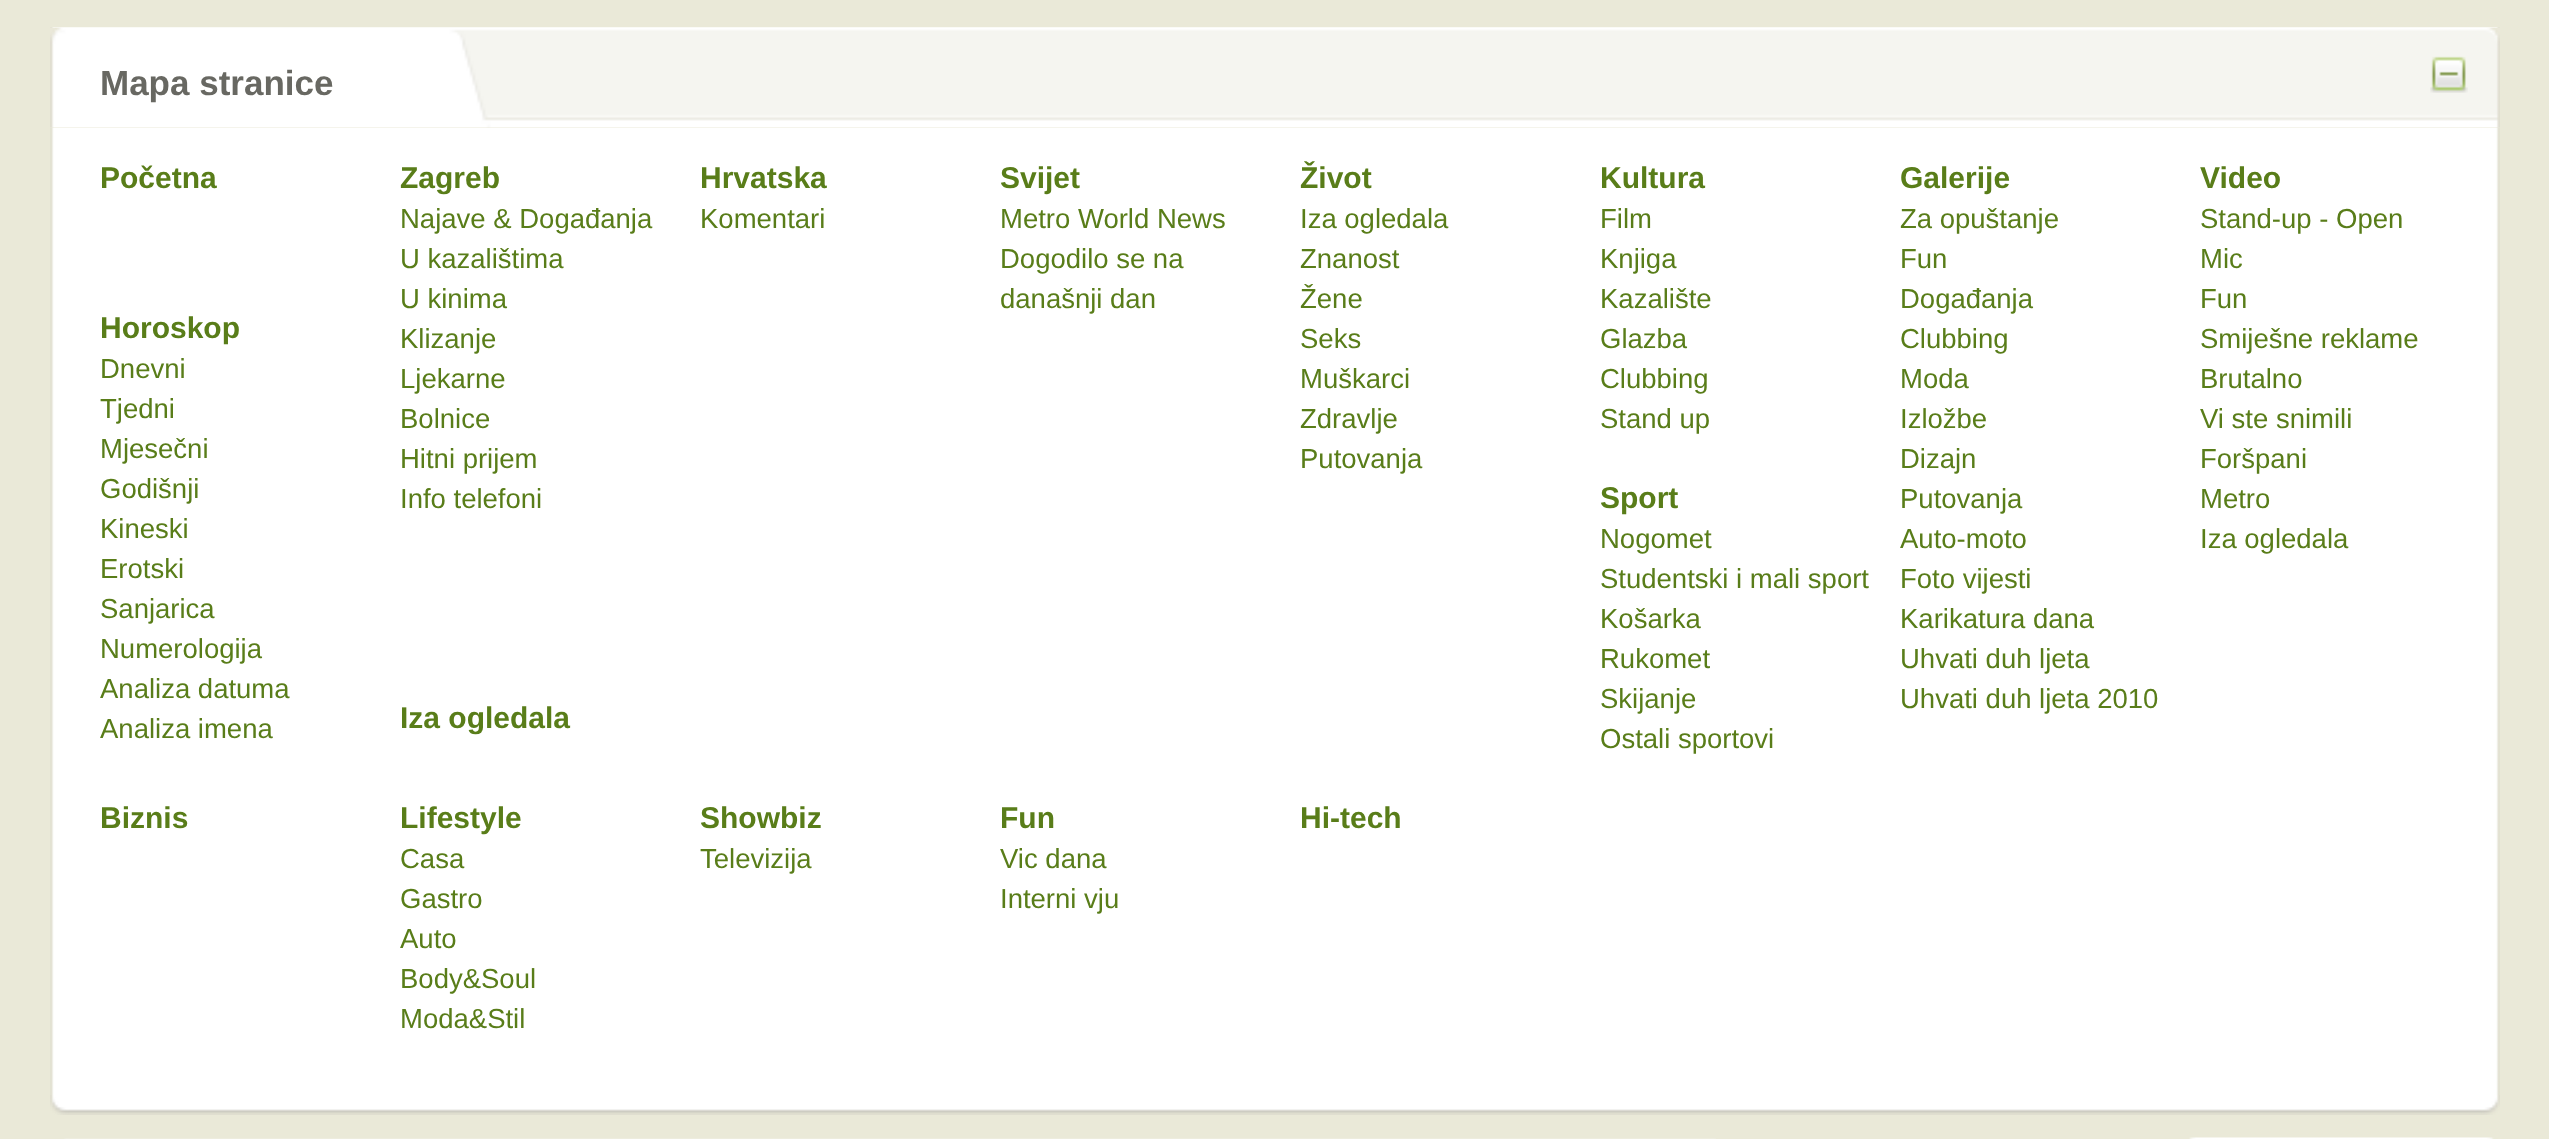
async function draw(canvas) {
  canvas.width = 2549;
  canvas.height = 1139;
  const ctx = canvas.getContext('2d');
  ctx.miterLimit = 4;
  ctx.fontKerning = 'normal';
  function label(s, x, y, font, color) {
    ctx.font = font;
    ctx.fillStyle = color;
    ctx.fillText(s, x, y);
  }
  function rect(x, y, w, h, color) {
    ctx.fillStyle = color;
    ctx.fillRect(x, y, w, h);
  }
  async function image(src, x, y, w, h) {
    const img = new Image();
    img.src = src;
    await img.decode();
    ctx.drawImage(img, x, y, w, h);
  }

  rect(0, 0, 2549, 1139, '#eae9d8');
  await image('assets/img1.png', 50, 27, 2450, 1068);
  rect(50, 28, 2450, 100, '#eae8d9');
  await image('assets/img2.png', 50, 27, 2450, 101);
  label('Mapa stranice', 100, 95, 'bold 35px Liberation Sans', '#686862');
  await image('assets/img3.png', 2430, 56, 38, 37);
  label('Početna', 100, 188, 'bold 30px Liberation Sans', '#597d19');
  label('Zagreb', 400, 188, 'bold 30px Liberation Sans', '#597d19');
  label('Najave & Događanja', 400, 228, '27.5px Liberation Sans', '#597d19');
  label('U kazalištima', 400, 268, '27.5px Liberation Sans', '#597d19');
  label('U kinima', 400, 308, '27.5px Liberation Sans', '#597d19');
  label('Klizanje', 400, 348, '27.5px Liberation Sans', '#597d19');
  label('Ljekarne', 400, 388, '27.5px Liberation Sans', '#597d19');
  label('Bolnice', 400, 428, '27.5px Liberation Sans', '#597d19');
  label('Hitni prijem', 400, 468, '27.5px Liberation Sans', '#597d19');
  label('Info telefoni', 400, 508, '27.5px Liberation Sans', '#597d19');
  label('Hrvatska', 700, 188, 'bold 30px Liberation Sans', '#597d19');
  label('Komentari', 700, 228, '27.5px Liberation Sans', '#597d19');
  label('Svijet', 1000, 188, 'bold 30px Liberation Sans', '#597d19');
  label('Metro World News', 1000, 228, '27.5px Liberation Sans', '#597d19');
  label('Dogodilo se na', 1000, 268, '27.5px Liberation Sans', '#597d19');
  label('današnji dan', 1000, 308, '27.5px Liberation Sans', '#597d19');
  label('Život', 1300, 188, 'bold 30px Liberation Sans', '#597d19');
  label('Iza ogledala', 1300, 228, '27.5px Liberation Sans', '#597d19');
  label('Znanost', 1300, 268, '27.5px Liberation Sans', '#597d19');
  label('Žene', 1300, 308, '27.5px Liberation Sans', '#597d19');
  label('Seks', 1300, 348, '27.5px Liberation Sans', '#597d19');
  label('Muškarci', 1300, 388, '27.5px Liberation Sans', '#597d19');
  label('Zdravlje', 1300, 428, '27.5px Liberation Sans', '#597d19');
  label('Putovanja', 1300, 468, '27.5px Liberation Sans', '#597d19');
  label('Kultura', 1600, 188, 'bold 30px Liberation Sans', '#597d19');
  label('Film', 1600, 228, '27.5px Liberation Sans', '#597d19');
  label('Knjiga', 1600, 268, '27.5px Liberation Sans', '#597d19');
  label('Kazalište', 1600, 308, '27.5px Liberation Sans', '#597d19');
  label('Glazba', 1600, 348, '27.5px Liberation Sans', '#597d19');
  label('Clubbing', 1600, 388, '27.5px Liberation Sans', '#597d19');
  label('Stand up', 1600, 428, '27.5px Liberation Sans', '#597d19');
  label('Horoskop', 100, 338, 'bold 30px Liberation Sans', '#597d19');
  label('Dnevni', 100, 378, '27.5px Liberation Sans', '#597d19');
  label('Tjedni', 100, 418, '27.5px Liberation Sans', '#597d19');
  label('Mjesečni', 100, 458, '27.5px Liberation Sans', '#597d19');
  label('Godišnji', 100, 498, '27.5px Liberation Sans', '#597d19');
  label('Kineski', 100, 538, '27.5px Liberation Sans', '#597d19');
  label('Erotski', 100, 578, '27.5px Liberation Sans', '#597d19');
  label('Sanjarica', 100, 618, '27.5px Liberation Sans', '#597d19');
  label('Numerologija', 100, 658, '27.5px Liberation Sans', '#597d19');
  label('Analiza datuma', 100, 698, '27.5px Liberation Sans', '#597d19');
  label('Analiza imena', 100, 738, '27.5px Liberation Sans', '#597d19');
  label('Iza ogledala', 400, 728, 'bold 30px Liberation Sans', '#597d19');
  label('Sport', 1600, 508, 'bold 30px Liberation Sans', '#597d19');
  label('Nogomet', 1600, 548, '27.5px Liberation Sans', '#597d19');
  label('Studentski i mali sport', 1600, 588, '27.5px Liberation Sans', '#597d19');
  label('Košarka', 1600, 628, '27.5px Liberation Sans', '#597d19');
  label('Rukomet', 1600, 668, '27.5px Liberation Sans', '#597d19');
  label('Skijanje', 1600, 708, '27.5px Liberation Sans', '#597d19');
  label('Ostali sportovi', 1600, 748, '27.5px Liberation Sans', '#597d19');
  label('Biznis', 100, 828, 'bold 30px Liberation Sans', '#597d19');
  label('Lifestyle', 400, 828, 'bold 30px Liberation Sans', '#597d19');
  label('Casa', 400, 868, '27.5px Liberation Sans', '#597d19');
  label('Gastro', 400, 908, '27.5px Liberation Sans', '#597d19');
  label('Auto', 400, 948, '27.5px Liberation Sans', '#597d19');
  label('Body&Soul', 400, 988, '27.5px Liberation Sans', '#597d19');
  label('Moda&Stil', 400, 1028, '27.5px Liberation Sans', '#597d19');
  label('Showbiz', 700, 828, 'bold 30px Liberation Sans', '#597d19');
  label('Televizija', 700, 868, '27.5px Liberation Sans', '#597d19');
  label('Fun', 1000, 828, 'bold 30px Liberation Sans', '#597d19');
  label('Vic dana', 1000, 868, '27.5px Liberation Sans', '#597d19');
  label('Interni vju', 1000, 908, '27.5px Liberation Sans', '#597d19');
  label('Hi-tech', 1300, 828, 'bold 30px Liberation Sans', '#597d19');
  label('Galerije', 1900, 188, 'bold 30px Liberation Sans', '#597d19');
  label('Za opuštanje', 1900, 228, '27.5px Liberation Sans', '#597d19');
  label('Fun', 1900, 268, '27.5px Liberation Sans', '#597d19');
  label('Događanja', 1900, 308, '27.5px Liberation Sans', '#597d19');
  label('Clubbing', 1900, 348, '27.5px Liberation Sans', '#597d19');
  label('Moda', 1900, 388, '27.5px Liberation Sans', '#597d19');
  label('Izložbe', 1900, 428, '27.5px Liberation Sans', '#597d19');
  label('Dizajn', 1900, 468, '27.5px Liberation Sans', '#597d19');
  label('Putovanja', 1900, 508, '27.5px Liberation Sans', '#597d19');
  label('Auto-moto', 1900, 548, '27.5px Liberation Sans', '#597d19');
  label('Foto vijesti', 1900, 588, '27.5px Liberation Sans', '#597d19');
  label('Karikatura dana', 1900, 628, '27.5px Liberation Sans', '#597d19');
  label('Uhvati duh ljeta', 1900, 668, '27.5px Liberation Sans', '#597d19');
  label('Uhvati duh ljeta 2010', 1900, 708, '27.5px Liberation Sans', '#597d19');
  label('Video', 2200, 188, 'bold 30px Liberation Sans', '#597d19');
  label('Stand-up - Open', 2200, 228, '27.5px Liberation Sans', '#597d19');
  label('Mic', 2200, 268, '27.5px Liberation Sans', '#597d19');
  label('Fun', 2200, 308, '27.5px Liberation Sans', '#597d19');
  label('Smiješne reklame', 2200, 348, '27.5px Liberation Sans', '#597d19');
  label('Brutalno', 2200, 388, '27.5px Liberation Sans', '#597d19');
  label('Vi ste snimili', 2200, 428, '27.5px Liberation Sans', '#597d19');
  label('Foršpani', 2200, 468, '27.5px Liberation Sans', '#597d19');
  label('Metro', 2200, 508, '27.5px Liberation Sans', '#597d19');
  label('Iza ogledala', 2200, 548, '27.5px Liberation Sans', '#597d19');
  await image('assets/img4.png', 50, 1095, 2450, 20);
  await image('assets/img5.png', 64, 1138, 1652, 1);
  await image('assets/img6.png', 2189, 1137, 305, 2);
}

draw(document.querySelector('canvas'));
